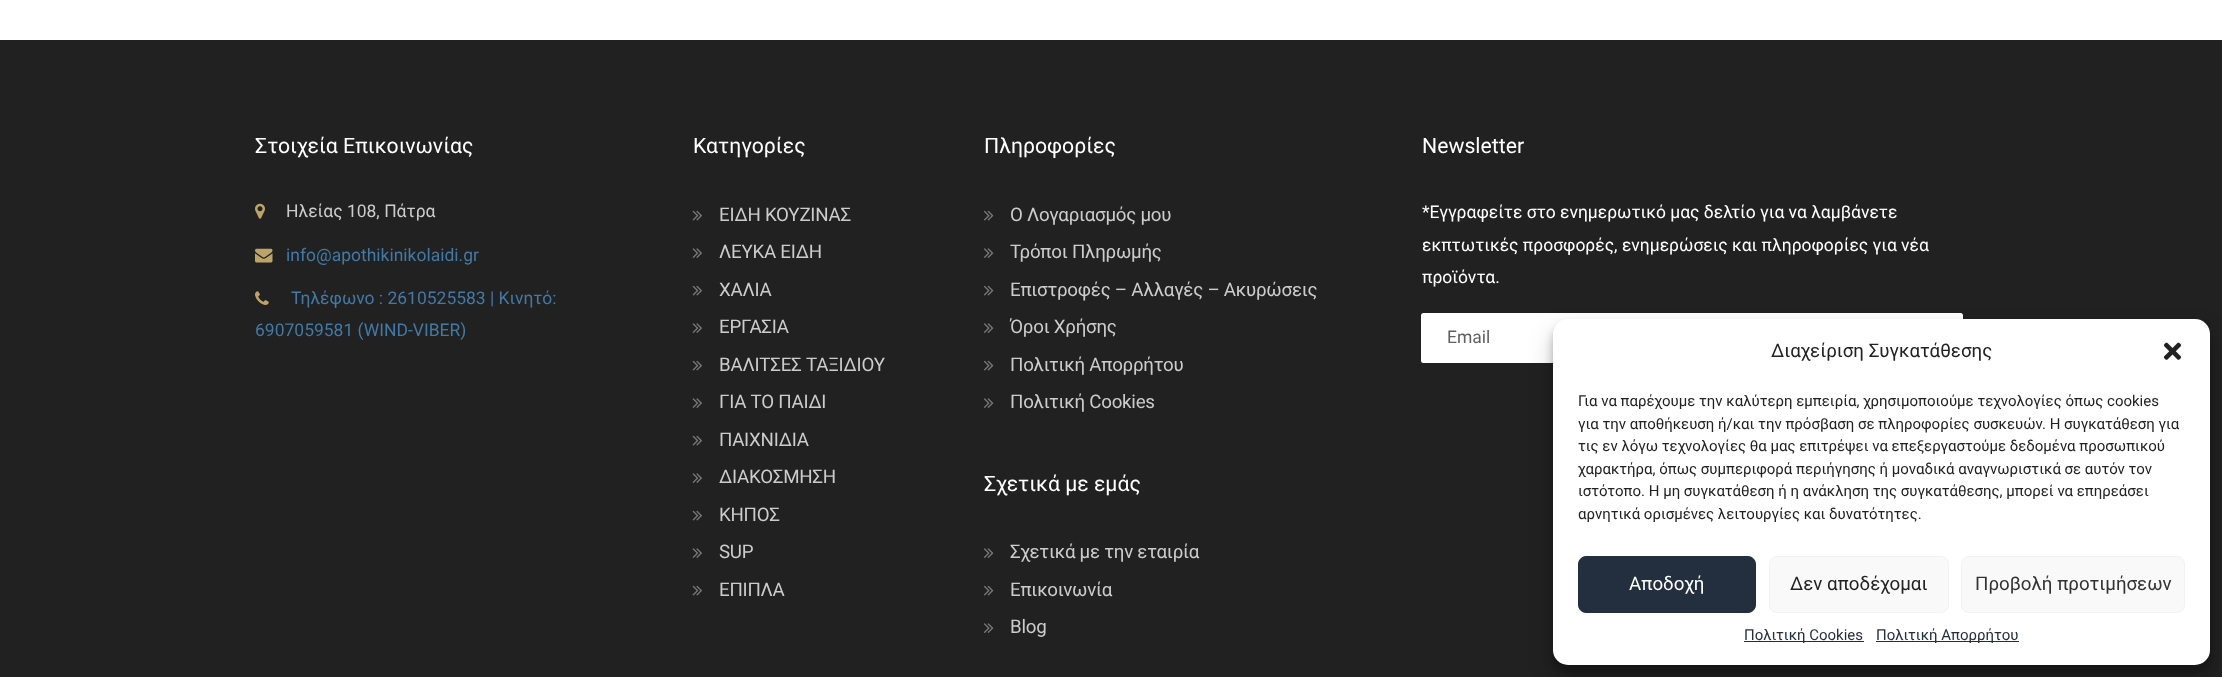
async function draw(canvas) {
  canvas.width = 2222;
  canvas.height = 677;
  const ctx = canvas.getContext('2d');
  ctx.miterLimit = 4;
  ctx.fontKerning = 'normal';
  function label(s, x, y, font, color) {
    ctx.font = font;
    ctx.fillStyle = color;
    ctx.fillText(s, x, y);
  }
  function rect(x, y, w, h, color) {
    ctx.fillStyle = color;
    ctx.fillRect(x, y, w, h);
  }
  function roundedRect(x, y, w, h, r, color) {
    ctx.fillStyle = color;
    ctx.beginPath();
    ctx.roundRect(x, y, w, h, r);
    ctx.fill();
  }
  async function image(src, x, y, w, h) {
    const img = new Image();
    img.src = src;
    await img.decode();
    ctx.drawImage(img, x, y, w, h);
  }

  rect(0, 0, 2222, 677, '#fff');
  rect(0, 40, 2222, 637, '#212121');
  label('Στοιχεία Επικοινωνίας', 255, 153, '21.25px Roboto', '#fff');
  await image('assets/img1.png', 255, 203, 10, 16);
  label('Ηλείας 108, Πάτρα', 286, 217, '17.5px Roboto', '#ccc');
  await image('assets/img2.png', 255, 248, 18, 15);
  label('info@apothikinikolaidi.gr', 286, 261, '17.5px Roboto', '#4279a6');
  await image('assets/img3.png', 255, 291, 14, 14);
  label('Τηλέφωνο : 2610525583 | Κινητό:', 291, 304, '17.5px Roboto', '#4279a6');
  label('6907059581 (WIND-VIBER)', 255, 336, '17.5px Roboto', '#4279a6');
  label('Κατηγορίες', 693, 153, '21.25px Roboto', '#fff');
  await image('assets/img4.png', 692, 210, 10, 11);
  ctx.letterSpacing = '-0.25px';
  label('ΕΙΔΗ ΚΟΥΖΙΝΑΣ', 719, 221, '18.75px Roboto', '#ccc');
  await image('assets/img5.png', 692, 248, 10, 10);
  label('ΛΕΥΚΑ ΕΙΔΗ', 719, 258, '18.75px Roboto', '#ccc');
  await image('assets/img4.png', 692, 285, 10, 11);
  label('ΧΑΛΙΑ', 719, 296, '18.75px Roboto', '#ccc');
  await image('assets/img5.png', 692, 323, 10, 10);
  label('ΕΡΓΑΣΙΑ', 719, 333, '18.75px Roboto', '#ccc');
  await image('assets/img4.png', 692, 360, 10, 11);
  label('ΒΑΛΙΤΣΕΣ ΤΑΞΙΔΙΟΥ', 719, 371, '18.75px Roboto', '#ccc');
  await image('assets/img5.png', 692, 398, 10, 10);
  label('ΓΙΑ ΤΟ ΠΑΙΔΙ', 719, 408, '18.75px Roboto', '#ccc');
  await image('assets/img4.png', 692, 435, 10, 11);
  label('ΠΑΙΧΝΙΔΙΑ', 719, 446, '18.75px Roboto', '#ccc');
  await image('assets/img5.png', 692, 473, 10, 10);
  label('ΔΙΑΚΟΣΜΗΣΗ', 719, 483, '18.75px Roboto', '#ccc');
  await image('assets/img4.png', 692, 510, 10, 11);
  label('ΚΗΠΟΣ', 719, 521, '18.75px Roboto', '#ccc');
  await image('assets/img5.png', 692, 548, 10, 10);
  label('SUP', 719, 558, '18.75px Roboto', '#ccc');
  await image('assets/img4.png', 692, 585, 10, 11);
  label('ΕΠΙΠΛΑ', 719, 596, '18.75px Roboto', '#ccc');
  ctx.letterSpacing = '0px';
  label('Πληροφορίες', 984, 153, '21.25px Roboto', '#fff');
  await image('assets/img6.png', 984, 210, 10, 11);
  ctx.letterSpacing = '-0.25px';
  label('Ο Λογαριασμός μου', 1010, 221, '18.75px Roboto', '#ccc');
  await image('assets/img7.png', 984, 248, 10, 10);
  label('Τρόποι Πληρωμής', 1010, 258, '18.75px Roboto', '#ccc');
  await image('assets/img6.png', 984, 285, 10, 11);
  label('Επιστροφές – Αλλαγές – Ακυρώσεις', 1010, 296, '18.75px Roboto', '#ccc');
  await image('assets/img7.png', 984, 323, 10, 10);
  label('Όροι Χρήσης', 1010, 333, '18.75px Roboto', '#ccc');
  await image('assets/img6.png', 984, 360, 10, 11);
  label('Πολιτική Απορρήτου', 1010, 371, '18.75px Roboto', '#ccc');
  await image('assets/img7.png', 984, 398, 10, 10);
  label('Πολιτική Cookies', 1010, 408, '18.75px Roboto', '#ccc');
  ctx.letterSpacing = '0px';
  label('Σχετικά με εμάς', 984, 491, '21.25px Roboto', '#fff');
  await image('assets/img7.png', 984, 548, 10, 10);
  ctx.letterSpacing = '-0.25px';
  label('Σχετικά με την εταιρία', 1010, 558, '18.75px Roboto', '#ccc');
  await image('assets/img6.png', 984, 585, 10, 11);
  label('Επικοινωνία', 1010, 596, '18.75px Roboto', '#ccc');
  await image('assets/img7.png', 984, 623, 10, 10);
  label('Blog', 1010, 633, '18.75px Roboto', '#ccc');
  ctx.letterSpacing = '0px';
  label('Newsletter', 1422, 153, '21.25px Roboto', '#fff');
  label('*Εγγραφείτε στο ενημερωτικό μας δελτίο για να λαμβάνετε', 1422, 218, '17.5px Roboto', '#fff');
  label('εκπτωτικές προσφορές, ενημερώσεις και πληροφορίες για νέα', 1422, 251, '17.5px Roboto', '#fff');
  label('προϊόντα.', 1422, 283, '17.5px Roboto', '#fff');
  roundedRect(1421, 313, 542, 50, 2.5, '#fff');
  label('Email', 1447, 343, '17.5px Roboto', '#606060');
  ctx.fillStyle = '#0000003b';
  ctx.filter = 'blur(4px)';
  ctx.beginPath();
  ctx.roundRect(1553, 326, 657, 347, 15);
  ctx.fill();
  ctx.filter = 'none';
  ctx.fillStyle = '#00000030';
  ctx.filter = 'blur(12.5px)';
  ctx.beginPath();
  ctx.roundRect(1553, 331, 657, 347, 15);
  ctx.fill();
  ctx.filter = 'none';
  roundedRect(1553, 319, 657, 346, 15, '#fff');
  label('Διαχείριση Συγκατάθεσης', 1771, 357, '18.75px Roboto', '#222');
  await image('assets/img8.png', 2163, 342, 19, 18);
  label('Για να παρέχουμε την καλύτερη εμπειρία, χρησιμοποιούμε τεχνολογίες όπως cookies', 1578, 406, '15px Roboto', '#222');
  label('για την αποθήκευση ή/και την πρόσβαση σε πληροφορίες συσκευών. Η συγκατάθεση για', 1578, 429, '15px Roboto', '#222');
  label('τις εν λόγω τεχνολογίες θα μας επιτρέψει να επεξεργαστούμε δεδομένα προσωπικού', 1578, 451, '15px Roboto', '#222');
  label('χαρακτήρα, όπως συμπεριφορά περιήγησης ή μοναδικά αναγνωριστικά σε αυτόν τον', 1578, 474, '15px Roboto', '#222');
  label('ιστότοπο. Η μη συγκατάθεση ή η ανάκληση της συγκατάθεσης, μπορεί να επηρεάσει', 1578, 496, '15px Roboto', '#222');
  label('αρνητικά ορισμένες λειτουργίες και δυνατότητες.', 1578, 519, '15px Roboto', '#222');
  ctx.fillStyle = '#232f3e';
  ctx.beginPath();
  ctx.roundRect(1578.5, 556.5, 177, 56, 7.5);
  ctx.fill();
  ctx.strokeStyle = '#232f3e';
  ctx.stroke();
  label('Αποδοχή', 1629, 590, '18.75px Roboto', '#fff');
  ctx.fillStyle = '#f9f9f9';
  ctx.beginPath();
  ctx.roundRect(1769.5, 556.5, 179, 56, 7.5);
  ctx.fill();
  ctx.strokeStyle = '#f2f2f2';
  ctx.stroke();
  label('Δεν αποδέχομαι', 1790, 590, '18.75px Roboto', '#222');
  ctx.fillStyle = '#f9f9f9';
  ctx.beginPath();
  ctx.roundRect(1961.5, 556.5, 223, 56, 7.5);
  ctx.fill();
  ctx.stroke();
  label('Προβολή προτιμήσεων', 1975, 590, '18.75px Roboto', '#333');
  rect(1744, 641, 120, 1, '#232f3e');
  label('Πολιτική Cookies', 1744, 640, '15px Roboto', '#232f3e');
  rect(1876, 641, 143, 1, '#232f3e');
  label('Πολιτική Απορρήτου', 1876, 640, '15px Roboto', '#232f3e');
}

draw(document.querySelector('canvas'));
